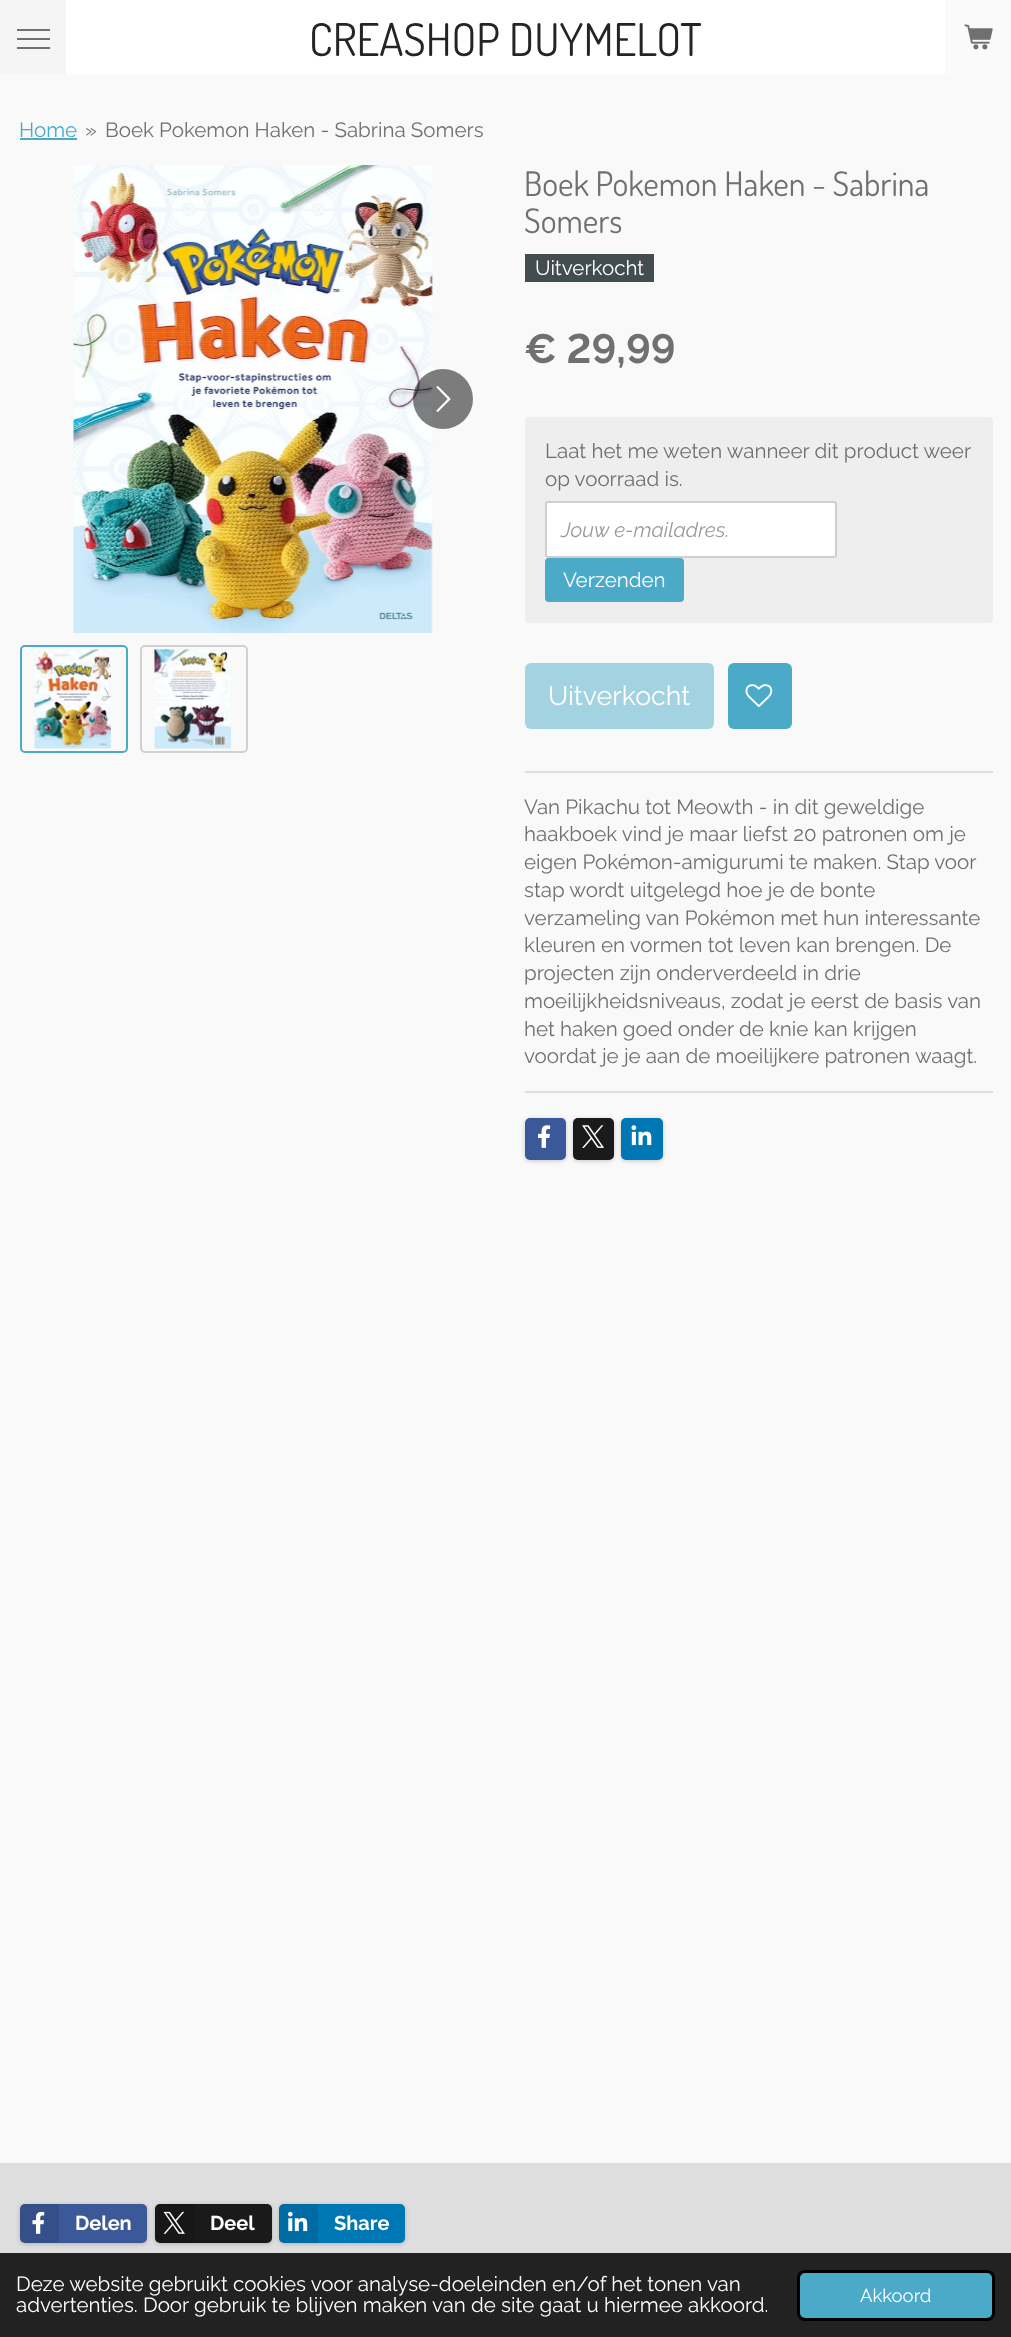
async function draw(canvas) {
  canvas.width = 1011;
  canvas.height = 2337;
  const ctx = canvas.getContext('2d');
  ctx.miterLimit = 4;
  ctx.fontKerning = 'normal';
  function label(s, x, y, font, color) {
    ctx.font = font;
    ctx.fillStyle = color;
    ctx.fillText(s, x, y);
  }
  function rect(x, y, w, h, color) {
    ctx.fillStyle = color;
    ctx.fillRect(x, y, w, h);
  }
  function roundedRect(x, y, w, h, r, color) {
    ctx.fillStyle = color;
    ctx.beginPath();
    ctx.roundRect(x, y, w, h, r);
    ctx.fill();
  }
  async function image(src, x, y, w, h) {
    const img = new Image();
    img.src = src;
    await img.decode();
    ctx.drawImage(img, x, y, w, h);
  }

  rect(0, 0, 1011, 2337, '#fff');
  rect(0, 0, 66, 75, '#f5f5f5');
  rect(17, 38, 33, 2, '#707070');
  rect(17, 29, 33, 2, '#707070');
  rect(17, 47, 33, 2, '#707070');
  label('CREASHOP DUYMELOT', 309, 56, '45px Dosis', '#242424');
  rect(945, 0, 66, 75, '#fafafa');
  await image('assets/img1.png', 964, 24, 29, 26);
  rect(0, 75, 1011, 2088, '#f9f9f9');
  label('Home', 19, 137, '20.55px Raleway', '#4caac9');
  rect(20, 138, 57, 2, '#4caac9');
  label('»', 85, 137, '20.55px Raleway', '#707070');
  label('Boek Pokemon Haken - Sabrina Somers', 105, 137, '20.55px Raleway', '#707070');
  await image('assets/img2.png', 73, 165, 360, 468);
  ctx.fillStyle = '#00000080';
  ctx.beginPath();
  ctx.arc(443, 399, 30, 0, 2 * Math.PI);
  ctx.fill();
  await image('assets/img3.png', 436, 386, 15, 26);
  ctx.beginPath();
  ctx.roundRect(21, 646, 106, 106, 4);
  ctx.strokeStyle = '#4caac9';
  ctx.lineWidth = 2;
  ctx.stroke();
  await image('assets/img4.png', 34, 649, 77, 100);
  ctx.beginPath();
  ctx.roundRect(141, 646, 106, 106, 4);
  ctx.strokeStyle = '#d0d0d0';
  ctx.stroke();
  await image('assets/img5.png', 154, 649, 77, 100);
  label('Boek Pokemon Haken - Sabrina', 524, 196, '33.75px Dosis', '#707070');
  label('Somers', 524, 233, '33.75px Dosis', '#707070');
  rect(525, 254, 129, 28, '#424c51');
  label('Uitverkocht', 535, 275, '20.55px Raleway', '#fff');
  label('€ 29,99', 524, 363, 'bold 41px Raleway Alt', '#707070');
  roundedRect(525, 417, 468, 206, 4, '#eee');
  label('Laat het me weten wanneer dit product weer', 545, 458, '20.55px Raleway', '#707070');
  label('op voorraad is.', 545, 486, '20.55px Raleway', '#707070');
  roundedRect(545, 501, 292, 57, 3, '#fff');
  ctx.beginPath();
  ctx.roundRect(546, 502, 290, 55, 2);
  ctx.strokeStyle = '#a0a0a080';
  ctx.stroke();
  label('Jouw e-mailadres.', 561, 537, 'italic 20.55px Raleway', '#9b9b9b');
  roundedRect(545, 558, 139, 44, 4, '#4caac9');
  label('Verzenden', 563, 587, '20.55px Raleway', '#fff');
  roundedRect(525, 663, 189, 66, 6, '#a3d2e1');
  label('Uitverkocht', 548, 705, '26.75px Raleway', '#fff');
  roundedRect(728, 663, 64, 66, 6, '#4caac9');
  await image('assets/img6.png', 745, 684, 28, 24);
  rect(525, 771, 468, 2, '#dedede');
  label('Van Pikachu tot Meowth - in dit geweldige', 524, 814, '20.55px Raleway', '#707070');
  label('haakboek vind je maar liefst 20 patronen om je', 524, 841, '20.55px Raleway', '#707070');
  label('eigen Pokémon-amigurumi te maken. Stap voor', 524, 869, '20.55px Raleway', '#707070');
  label('stap wordt uitgelegd hoe je de bonte', 524, 897, '20.55px Raleway', '#707070');
  label('verzameling van Pokémon met hun interessante', 524, 925, '20.55px Raleway', '#707070');
  label('kleuren en vormen tot leven kan brengen. De', 524, 952, '20.55px Raleway', '#707070');
  label('projecten zijn onderverdeeld in drie', 524, 980, '20.55px Raleway', '#707070');
  label('moeilijkheidsniveaus, zodat je eerst de basis van', 524, 1008, '20.55px Raleway', '#707070');
  label('het haken goed onder de knie kan krijgen', 524, 1036, '20.55px Raleway', '#707070');
  label('voordat je je aan de moeilijkere patronen waagt.', 524, 1063, '20.55px Raleway', '#707070');
  rect(525, 1091, 468, 2, '#dedede');
  ctx.fillStyle = '#00000033';
  ctx.filter = 'blur(2px)';
  ctx.beginPath();
  ctx.roundRect(525, 1119, 41, 42, 5);
  ctx.fill();
  ctx.filter = 'none';
  roundedRect(525, 1118, 41, 42, 5, '#3b5998');
  await image('assets/img7.png', 538, 1125, 13, 23);
  ctx.fillStyle = '#00000033';
  ctx.filter = 'blur(2px)';
  ctx.beginPath();
  ctx.roundRect(573, 1119, 41, 42, 5);
  ctx.fill();
  ctx.filter = 'none';
  roundedRect(573, 1118, 41, 42, 5, '#1a1a1a');
  await image('assets/img8.png', 582, 1125, 22, 23);
  ctx.fillStyle = '#00000033';
  ctx.filter = 'blur(2px)';
  ctx.beginPath();
  ctx.roundRect(621, 1119, 42, 42, 5);
  ctx.fill();
  ctx.filter = 'none';
  roundedRect(621, 1118, 42, 42, 5, '#0077b5');
  await image('assets/img9.png', 631, 1125, 21, 21);
  rect(0, 2163, 1011, 90, '#dedede');
  ctx.fillStyle = '#00000033';
  ctx.filter = 'blur(2px)';
  ctx.beginPath();
  ctx.roundRect(20, 2205, 127, 39, 5);
  ctx.fill();
  ctx.filter = 'none';
  roundedRect(20, 2204, 127, 39, 5, '#3b5998');
  ctx.fillStyle = '#0000001a';
  ctx.beginPath();
  ctx.roundRect(20, 2204, 39, 39, [5, 0, 0, 5]);
  ctx.fill();
  await image('assets/img10.png', 32, 2211, 13, 23);
  label('Delen', 75, 2230, 'bold 20px Raleway', '#fff');
  ctx.fillStyle = '#00000033';
  ctx.filter = 'blur(2px)';
  ctx.beginPath();
  ctx.roundRect(155, 2205, 117, 39, 5);
  ctx.fill();
  ctx.filter = 'none';
  roundedRect(155, 2204, 117, 39, 5, '#1a1a1a');
  ctx.fillStyle = '#0000001a';
  ctx.beginPath();
  ctx.roundRect(155, 2204, 40, 39, [5, 0, 0, 5]);
  ctx.fill();
  await image('assets/img11.png', 163, 2211, 22, 23);
  label('Deel', 210, 2230, 'bold 20px Raleway', '#fff');
  ctx.fillStyle = '#00000033';
  ctx.filter = 'blur(2px)';
  ctx.beginPath();
  ctx.roundRect(279, 2205, 126, 39, 5);
  ctx.fill();
  ctx.filter = 'none';
  roundedRect(279, 2204, 126, 39, 5, '#0077b5');
  ctx.fillStyle = '#0000001a';
  ctx.beginPath();
  ctx.roundRect(279, 2204, 39, 39, [5, 0, 0, 5]);
  ctx.fill();
  await image('assets/img12.png', 288, 2211, 20, 21);
  label('Share', 334, 2230, 'bold 20px Raleway', '#fff');
  rect(0, 2253, 1011, 84, '#222');
  label('Deze website gebruikt cookies voor analyse-doeleinden en/of het tonen van', 16, 2291, '20.55px Raleway', '#fff');
  label('advertenties. Door gebruik te blijven maken van de site gaat u hiermee akkoord.', 16, 2312, '20.55px Raleway', '#fff');
  ctx.fillStyle = '#4caac9';
  ctx.beginPath();
  ctx.roundRect(798.5, 2271.5, 195, 48, 6.5);
  ctx.fill();
  ctx.strokeStyle = '#000';
  ctx.lineWidth = 3;
  ctx.stroke();
  label('Akkoord', 860, 2302, '18.5px Raleway', '#fff');
}

draw(document.querySelector('canvas'));
